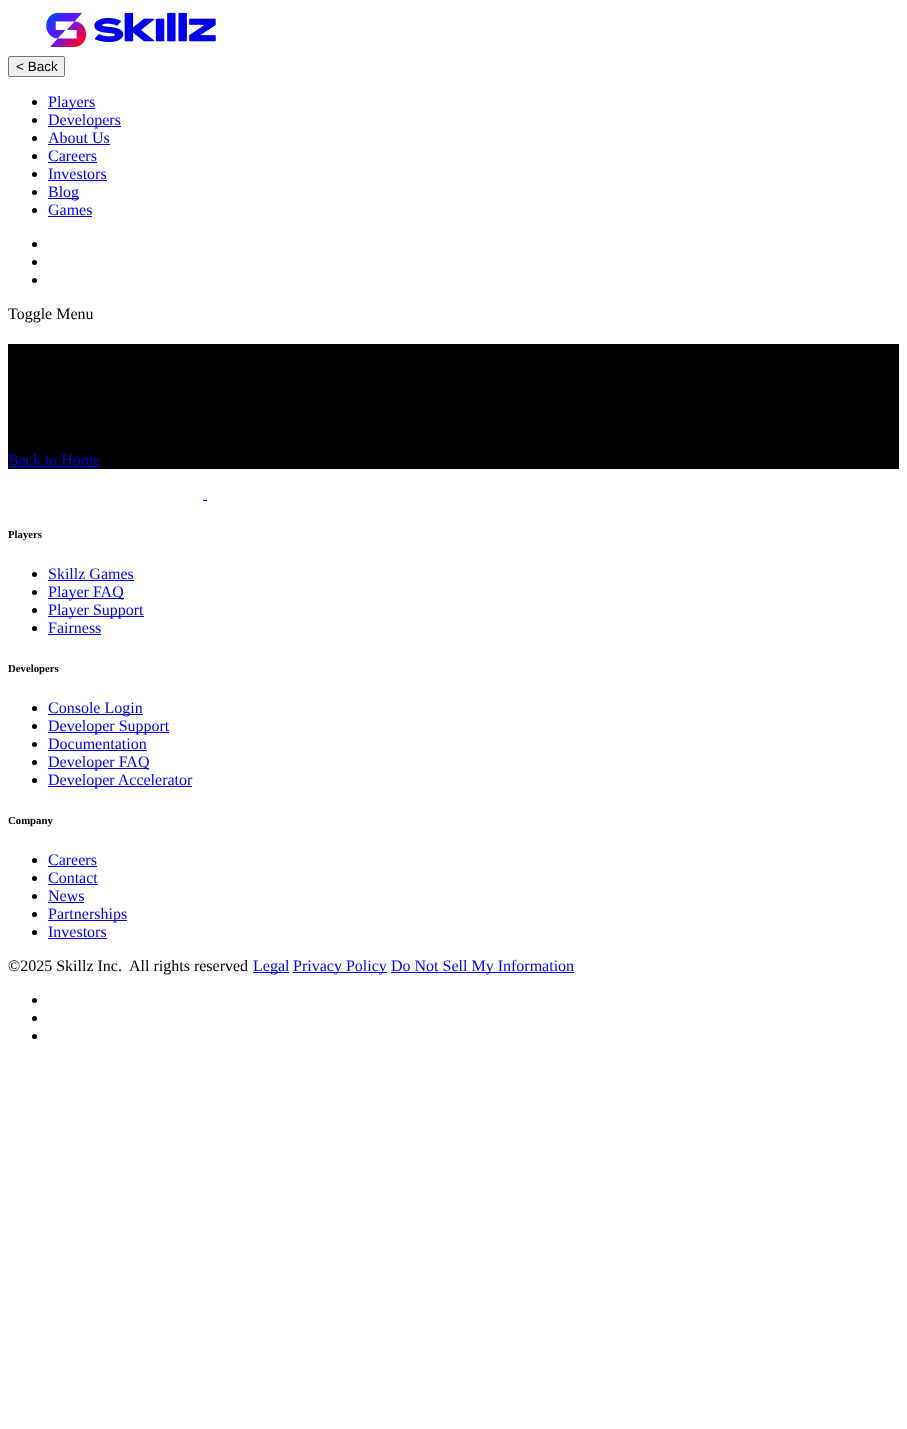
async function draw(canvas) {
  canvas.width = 907;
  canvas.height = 1429;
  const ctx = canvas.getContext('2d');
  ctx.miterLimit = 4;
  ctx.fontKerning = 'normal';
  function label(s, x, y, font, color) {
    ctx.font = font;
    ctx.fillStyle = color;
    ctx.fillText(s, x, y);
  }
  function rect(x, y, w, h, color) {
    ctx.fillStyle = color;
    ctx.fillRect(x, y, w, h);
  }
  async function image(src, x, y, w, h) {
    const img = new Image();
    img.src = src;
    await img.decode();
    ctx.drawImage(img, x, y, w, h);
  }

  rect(0, 0, 907, 1429, '#fff');
  await image('assets/img1.png', 46, 12, 170, 35);
  ctx.fillStyle = '#efefef';
  ctx.beginPath();
  ctx.roundRect(8.5, 56.5, 56, 20, 1.5);
  ctx.fill();
  ctx.strokeStyle = '#767676';
  ctx.stroke();
  label('< Back', 16, 71, '13.5px Liberation Sans', '#000');
  ctx.beginPath();
  ctx.arc(34.5, 102.5, 2.5, 0, 2 * Math.PI);
  ctx.fill();
  rect(48, 108, 47, 1, '#00e');
  label('Players', 48, 107, '16px Liberation Serif', '#00e');
  ctx.fillStyle = '#000';
  ctx.beginPath();
  ctx.arc(34.5, 120.5, 2.5, 0, 2 * Math.PI);
  ctx.fill();
  rect(48, 126, 73, 1, '#00e');
  label('Developers', 48, 125, '16px Liberation Serif', '#00e');
  ctx.fillStyle = '#000';
  ctx.beginPath();
  ctx.arc(34.5, 138.5, 2.5, 0, 2 * Math.PI);
  ctx.fill();
  label('About Us', 48, 143, '16px Liberation Serif', '#00e');
  rect(48, 144, 62, 1, '#00e');
  ctx.fillStyle = '#000';
  ctx.beginPath();
  ctx.arc(34.5, 156.5, 2.5, 0, 2 * Math.PI);
  ctx.fill();
  label('Careers', 48, 161, '16px Liberation Serif', '#00e');
  rect(48, 162, 49, 1, '#00e');
  ctx.fillStyle = '#000';
  ctx.beginPath();
  ctx.arc(34.5, 174.5, 2.5, 0, 2 * Math.PI);
  ctx.fill();
  label('Investors', 48, 179, '16px Liberation Serif', '#00e');
  rect(48, 180, 59, 1, '#00e');
  ctx.fillStyle = '#000';
  ctx.beginPath();
  ctx.arc(34.5, 192.5, 2.5, 0, 2 * Math.PI);
  ctx.fill();
  rect(48, 198, 31, 1, '#00e');
  label('Blog', 48, 197, '16px Liberation Serif', '#00e');
  ctx.fillStyle = '#000';
  ctx.beginPath();
  ctx.arc(34.5, 210.5, 2.5, 0, 2 * Math.PI);
  ctx.fill();
  label('Games', 48, 215, '16px Liberation Serif', '#00e');
  rect(48, 216, 44, 1, '#00e');
  ctx.fillStyle = '#000';
  ctx.beginPath();
  ctx.arc(34.5, 244.5, 2.5, 0, 2 * Math.PI);
  ctx.fill();
  ctx.beginPath();
  ctx.arc(34.5, 262.5, 2.5, 0, 2 * Math.PI);
  ctx.fill();
  ctx.beginPath();
  ctx.arc(34.5, 280.5, 2.5, 0, 2 * Math.PI);
  ctx.fill();
  label('Toggle Menu', 8, 319, '16px Liberation Serif', '#000');
  rect(8, 344, 891, 125, '#000');
  label('Back to Home', 8, 465, '16px Liberation Serif', '#00e');
  rect(8, 466, 92, 1, '#00e');
  rect(203, 500, 4, 1, '#00e');
  label('Players', 8, 538, 'bold 10.75px Liberation Serif', '#000');
  ctx.beginPath();
  ctx.arc(34.5, 574.5, 2.5, 0, 2 * Math.PI);
  ctx.fill();
  label('Skillz Games', 48, 579, '16px Liberation Serif', '#00e');
  rect(48, 580, 86, 1, '#00e');
  ctx.fillStyle = '#000';
  ctx.beginPath();
  ctx.arc(34.5, 592.5, 2.5, 0, 2 * Math.PI);
  ctx.fill();
  rect(48, 598, 76, 1, '#00e');
  label('Player FAQ', 48, 597, '16px Liberation Serif', '#00e');
  ctx.fillStyle = '#000';
  ctx.beginPath();
  ctx.arc(34.5, 610.5, 2.5, 0, 2 * Math.PI);
  ctx.fill();
  rect(48, 616, 96, 1, '#00e');
  label('Player Support', 48, 615, '16px Liberation Serif', '#00e');
  ctx.fillStyle = '#000';
  ctx.beginPath();
  ctx.arc(34.5, 628.5, 2.5, 0, 2 * Math.PI);
  ctx.fill();
  label('Fairness', 48, 633, '16px Liberation Serif', '#00e');
  rect(48, 634, 53, 1, '#00e');
  label('Developers', 8, 672, 'bold 10.75px Liberation Serif', '#000');
  ctx.beginPath();
  ctx.arc(34.5, 708.5, 2.5, 0, 2 * Math.PI);
  ctx.fill();
  rect(48, 714, 95, 1, '#00e');
  label('Console Login', 48, 713, '16px Liberation Serif', '#00e');
  ctx.fillStyle = '#000';
  ctx.beginPath();
  ctx.arc(34.5, 726.5, 2.5, 0, 2 * Math.PI);
  ctx.fill();
  rect(48, 732, 121, 1, '#00e');
  label('Developer Support', 48, 731, '16px Liberation Serif', '#00e');
  ctx.fillStyle = '#000';
  ctx.beginPath();
  ctx.arc(34.5, 744.5, 2.5, 0, 2 * Math.PI);
  ctx.fill();
  label('Documentation', 48, 749, '16px Liberation Serif', '#00e');
  rect(48, 750, 99, 1, '#00e');
  ctx.fillStyle = '#000';
  ctx.beginPath();
  ctx.arc(34.5, 762.5, 2.5, 0, 2 * Math.PI);
  ctx.fill();
  rect(48, 768, 101, 1, '#00e');
  label('Developer FAQ', 48, 767, '16px Liberation Serif', '#00e');
  ctx.fillStyle = '#000';
  ctx.beginPath();
  ctx.arc(34.5, 780.5, 2.5, 0, 2 * Math.PI);
  ctx.fill();
  rect(48, 786, 144, 1, '#00e');
  label('Developer Accelerator', 48, 785, '16px Liberation Serif', '#00e');
  label('Company', 8, 824, 'bold 10.75px Liberation Serif', '#000');
  ctx.beginPath();
  ctx.arc(34.5, 860.5, 2.5, 0, 2 * Math.PI);
  ctx.fill();
  label('Careers', 48, 865, '16px Liberation Serif', '#00e');
  rect(48, 866, 49, 1, '#00e');
  ctx.fillStyle = '#000';
  ctx.beginPath();
  ctx.arc(34.5, 878.5, 2.5, 0, 2 * Math.PI);
  ctx.fill();
  label('Contact', 48, 883, '16px Liberation Serif', '#00e');
  rect(48, 884, 50, 1, '#00e');
  ctx.fillStyle = '#000';
  ctx.beginPath();
  ctx.arc(34.5, 896.5, 2.5, 0, 2 * Math.PI);
  ctx.fill();
  label('News', 48, 901, '16px Liberation Serif', '#00e');
  rect(48, 902, 36, 1, '#00e');
  ctx.fillStyle = '#000';
  ctx.beginPath();
  ctx.arc(34.5, 914.5, 2.5, 0, 2 * Math.PI);
  ctx.fill();
  rect(48, 920, 79, 1, '#00e');
  label('Partnerships', 48, 919, '16px Liberation Serif', '#00e');
  ctx.fillStyle = '#000';
  ctx.beginPath();
  ctx.arc(34.5, 932.5, 2.5, 0, 2 * Math.PI);
  ctx.fill();
  label('Investors', 48, 937, '16px Liberation Serif', '#00e');
  rect(48, 938, 59, 1, '#00e');
  label('©2025 Skillz Inc.  All rights reserved', 8, 971, '16px Liberation Serif', '#000');
  rect(253, 972, 36, 1, '#00e');
  label('Legal', 253, 971, '16px Liberation Serif', '#00e');
  rect(293, 972, 94, 1, '#00e');
  label('Privacy Policy', 293, 971, '16px Liberation Serif', '#00e');
  rect(391, 972, 183, 1, '#00e');
  label('Do Not Sell My Information', 391, 971, '16px Liberation Serif', '#00e');
  ctx.fillStyle = '#000';
  ctx.beginPath();
  ctx.arc(34.5, 1000.5, 2.5, 0, 2 * Math.PI);
  ctx.fill();
  ctx.beginPath();
  ctx.arc(34.5, 1018.5, 2.5, 0, 2 * Math.PI);
  ctx.fill();
  ctx.beginPath();
  ctx.arc(34.5, 1036.5, 2.5, 0, 2 * Math.PI);
  ctx.fill();
}

draw(document.querySelector('canvas'));
